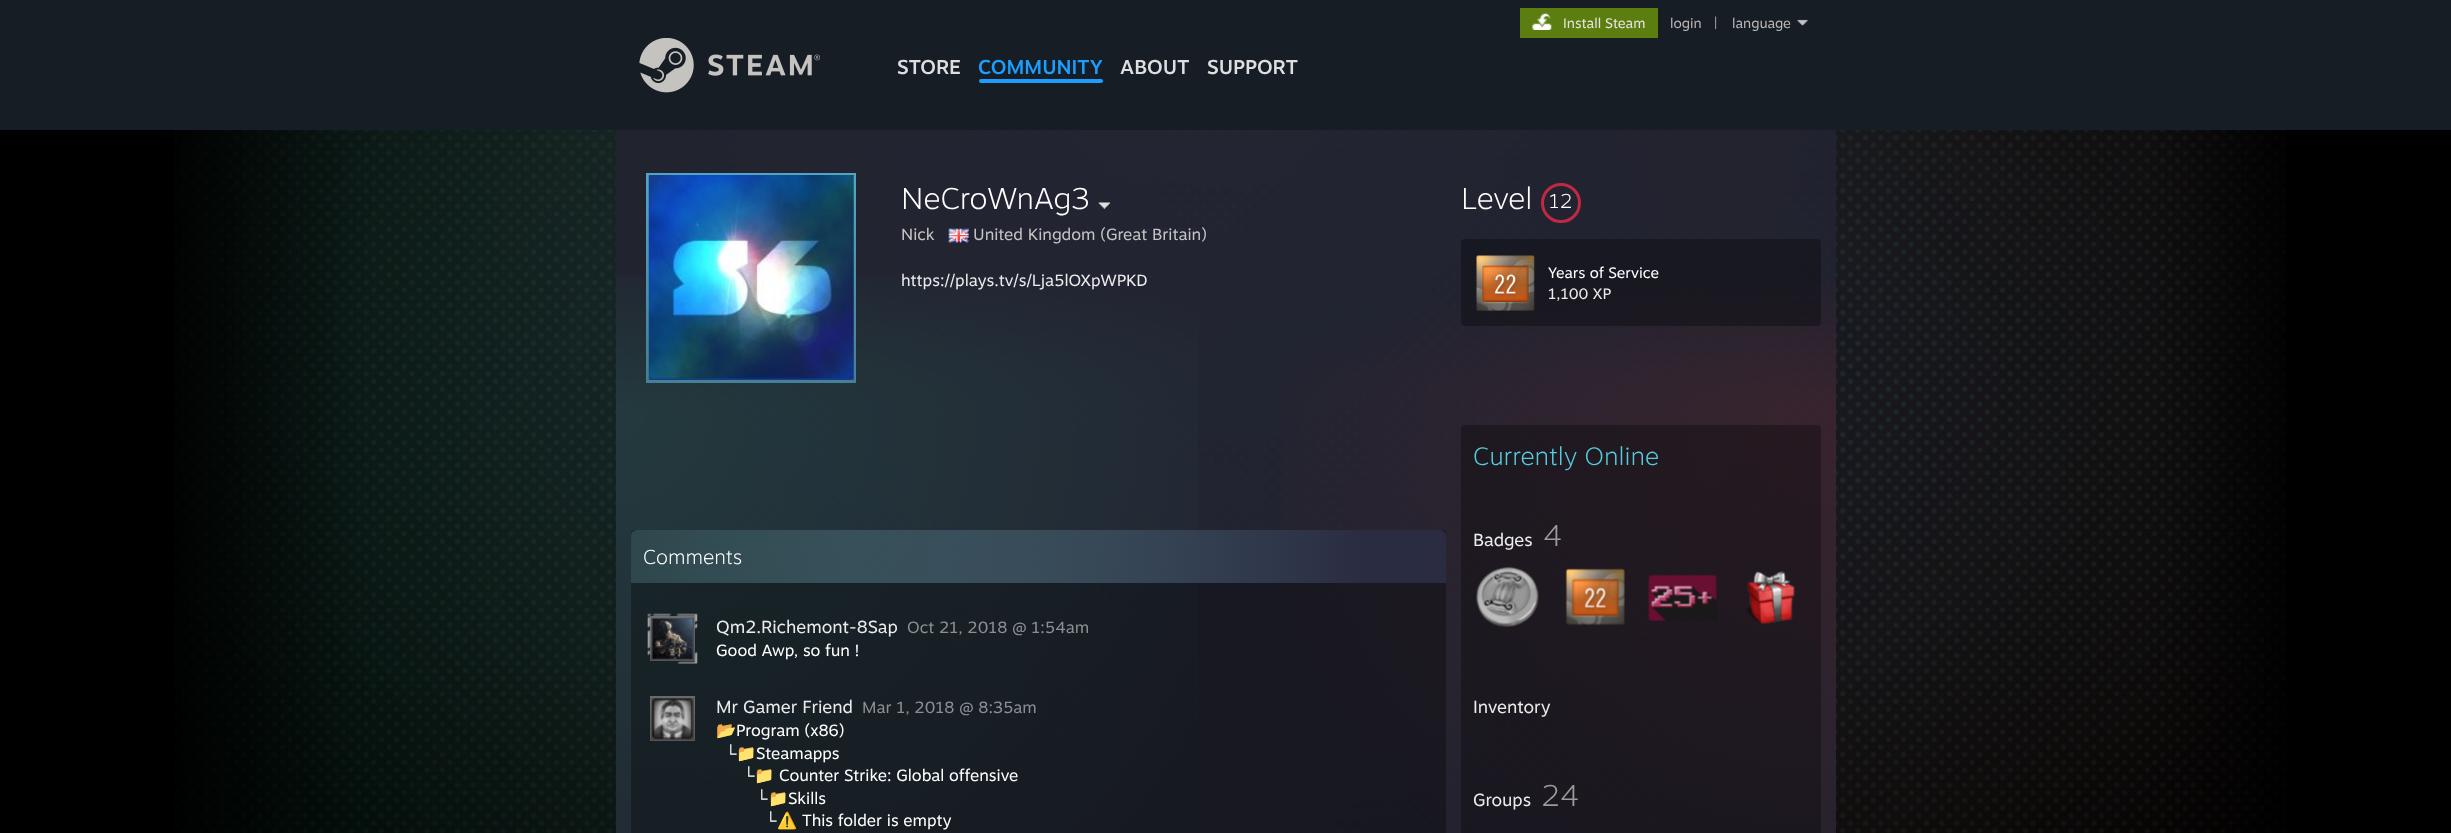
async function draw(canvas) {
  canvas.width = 2451;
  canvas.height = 833;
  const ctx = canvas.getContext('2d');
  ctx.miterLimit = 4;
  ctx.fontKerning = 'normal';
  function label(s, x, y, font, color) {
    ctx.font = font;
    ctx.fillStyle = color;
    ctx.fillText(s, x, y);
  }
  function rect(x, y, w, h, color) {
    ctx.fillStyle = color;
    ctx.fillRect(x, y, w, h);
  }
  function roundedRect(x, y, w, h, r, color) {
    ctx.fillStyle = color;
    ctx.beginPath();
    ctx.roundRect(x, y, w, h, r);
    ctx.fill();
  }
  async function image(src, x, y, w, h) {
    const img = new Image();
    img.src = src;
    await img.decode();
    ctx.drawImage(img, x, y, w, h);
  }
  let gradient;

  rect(0, 0, 2451, 833, '#171d25');
  rect(1520, 8, 138, 30, '#5c7e10');
  await image('assets/img1.png', 1532, 13, 20, 17);
  label('Install Steam', 1563, 28, '13.75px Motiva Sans', '#e5e4dc');
  label('login', 1670, 28, '13.75px Motiva Sans', '#b8b6b4');
  label('|', 1714, 28, '13.75px Motiva Sans', '#b8b6b4');
  label('language', 1732, 28, '13.75px Motiva Sans', '#b8b6b4');
  await image('assets/img2.png', 1797, 19, 11, 7);
  await image('assets/img3.png', 639, 38, 181, 55);
  label('STORE', 897, 74, '500 20px Motiva Sans', '#dcdedf');
  label('COMMUNITY', 978, 74, '500 20px Motiva Sans', '#1a9fff');
  roundedRect(979, 79, 124, 4, 2, '#1a9fff');
  label('ABOUT', 1120, 74, '500 20px Motiva Sans', '#dcdedf');
  label('SUPPORT', 1207, 74, '500 20px Motiva Sans', '#dcdedf');
  rect(0, 130, 2451, 703, '#000');
  await image('assets/img4.png', 174, 130, 2112, 703);
  rect(616, 130, 1220, 280, '#222330ed');
  gradient = ctx.createRadialGradient(616, 1785.98, 0, 616, 1785.98, 1725);
  gradient.addColorStop(0, '#32ffc11a');
  gradient.addColorStop(0.43, '#32ffc100');
  ctx.fillStyle = gradient;
  ctx.beginPath();
  ctx.rect(616, 276, 582, 134);
  ctx.save();
  ctx.clip();
  ctx.scale(1, 396 / 1725);
  ctx.fillRect(0, 0, 2451, 3629);
  ctx.restore();
  gradient = ctx.createRadialGradient(1836, 1786.43, 0, 1836, 1786.43, 1220);
  gradient.addColorStop(0, '#6d262c4d');
  gradient.addColorStop(0.51, '#6d262c00');
  ctx.fillStyle = gradient;
  ctx.beginPath();
  ctx.rect(1282, 282, 554, 128);
  ctx.save();
  ctx.clip();
  ctx.scale(1, 280 / 1220);
  ctx.fillRect(0, 0, 2451, 3630);
  ctx.restore();
  gradient = ctx.createLinearGradient(751, 173, 751, 383);
  gradient.addColorStop(0.05, '#53a4c4');
  gradient.addColorStop(0.95, '#458097');
  ctx.fillStyle = gradient;
  ctx.fillRect(646, 173, 210, 210);
  await image('assets/img5.png', 648, 175, 206, 205);
  label('NeCroWnAg3', 901, 209, '100 30px Motiva Sans', '#fff');
  await image('assets/img6.png', 1098, 202, 12, 7);
  label('Nick', 901, 240, '16.25px Motiva Sans', '#c4c4c4');
  await image('assets/img7.png', 948, 228, 21, 15);
  label('United Kingdom (Great Britain)', 973, 240, '16.25px Motiva Sans', '#c4c4c4');
  label('https://plays.tv/s/Lja5lOXpWPKD', 901, 286, '16.25px Motiva Sans', '#ebebeb');
  label('Level', 1461, 209, '100 30px Motiva Sans', '#fff');
  ctx.beginPath();
  ctx.arc(1561, 203, 18.5, 0, 2 * Math.PI);
  ctx.strokeStyle = '#c02942';
  ctx.lineWidth = 3;
  ctx.stroke();
  label('12', 1549, 208, '100 20px Motiva Sans', '#fff');
  roundedRect(1461, 239, 360, 87, 4, '#0000004d');
  await image('assets/img8.png', 1476, 255, 59, 56);
  label('Years of Service', 1548, 278, '15px Motiva Sans', '#fff');
  label('1,100 XP', 1548, 299, '15px Motiva Sans', '#ebebeb');
  rect(616, 410, 1220, 423, '#222330ed');
  gradient = ctx.createRadialGradient(616, 411.91, 0, 616, 411.91, 1725);
  gradient.addColorStop(0, '#32ffc11a');
  gradient.addColorStop(0.43, '#32ffc100');
  ctx.fillStyle = gradient;
  ctx.beginPath();
  ctx.rect(616, 410, 582, 423);
  ctx.save();
  ctx.clip();
  ctx.scale(1, 1717 / 1725);
  ctx.fillRect(0, 0, 2451, 837);
  ctx.restore();
  gradient = ctx.createRadialGradient(1836, 412.03, 0, 1836, 412.03, 1220);
  gradient.addColorStop(0, '#6d262c4d');
  gradient.addColorStop(0.51, '#6d262c00');
  ctx.fillStyle = gradient;
  ctx.beginPath();
  ctx.rect(1282, 410, 554, 423);
  ctx.save();
  ctx.clip();
  ctx.scale(1, 1214 / 1220);
  ctx.fillRect(0, 0, 2451, 838);
  ctx.restore();
  roundedRect(631, 530, 815, 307, 4, '#0000004d');
  gradient = ctx.createLinearGradient(631, 556, 1446, 556);
  gradient.addColorStop(0, '#73adb840');
  gradient.addColorStop(0.9, '#2b2d44ed');
  ctx.fillStyle = gradient;
  ctx.beginPath();
  ctx.roundRect(631, 530, 815, 53, [6, 6, 0, 0]);
  ctx.fill();
  label('Comments', 643, 564, '100 20px Motiva Sans', '#fff');
  gradient = ctx.createLinearGradient(673, 616, 673, 661);
  gradient.addColorStop(0.05, '#6a6a6a');
  gradient.addColorStop(0.95, '#555');
  ctx.fillStyle = gradient;
  ctx.fillRect(650, 616, 45, 45);
  gradient = ctx.createLinearGradient(673, 618, 673, 660);
  gradient.addColorStop(0.05, '#515151');
  gradient.addColorStop(0.95, '#474747');
  ctx.fillStyle = gradient;
  ctx.fillRect(651, 618, 43, 42);
  await image('assets/img10.png', 652, 618, 41, 41);
  await image('assets/img9.png', 647, 613, 51, 51);
  label('Qm2.Richemont-8Sap', 716, 633, '17.5px Motiva Sans', '#ebebeb');
  label('Oct 21, 2018 @ 1:54am', 907, 633, '16.25px Motiva Sans', '#8b8f92');
  label('Good Awp, so fun !', 716, 656, '16.25px Motiva Sans', '#fff');
  gradient = ctx.createLinearGradient(673, 696, 673, 741);
  gradient.addColorStop(0.05, '#6a6a6a');
  gradient.addColorStop(0.95, '#555');
  ctx.fillStyle = gradient;
  ctx.fillRect(650, 696, 45, 45);
  gradient = ctx.createLinearGradient(673, 698, 673, 740);
  gradient.addColorStop(0.05, '#515151');
  gradient.addColorStop(0.95, '#474747');
  ctx.fillStyle = gradient;
  ctx.fillRect(651, 698, 43, 42);
  await image('assets/img11.png', 652, 698, 42, 42);
  label('Mr Gamer Friend', 716, 713, '17.5px Motiva Sans', '#ebebeb');
  label('Mar 1, 2018 @ 8:35am', 862, 713, '16.25px Motiva Sans', '#8b8f92');
  ctx.save();
  ctx.beginPath();
  ctx.rect(716, 719, 718, 112);
  ctx.clip();
  label('📂', 716, 736, '16.25px Noto Color Emoji', '#fff');
  ctx.restore();
  label('Program (x86)', 736, 736, '16.25px Motiva Sans', '#fff');
  label('└', 725, 759, '16.25px Liberation Sans', '#fff');
  label('📁', 736, 759, '16.25px Noto Color Emoji', '#fff');
  label('Steamapps', 756, 759, '16.25px Motiva Sans', '#fff');
  label('└', 743, 781, '16.25px Liberation Sans', '#fff');
  label('📁', 754, 781, '16.25px Noto Color Emoji', '#fff');
  label('Counter Strike: Global offensive', 779, 781, '16.25px Motiva Sans', '#fff');
  label('└', 756, 804, '16.25px Liberation Sans', '#fff');
  label('📁', 768, 804, '16.25px Noto Color Emoji', '#fff');
  label('Skills', 788, 804, '16.25px Motiva Sans', '#fff');
  label('└', 765, 826, '16.25px Liberation Sans', '#fff');
  label('⚠️', 777, 826, '16.25px Noto Color Emoji', '#fff');
  label('This folder is empty', 802, 826, '16.25px Motiva Sans', '#fff');
  roundedRect(1461, 425, 360, 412, 4, '#0000004d');
  label('Currently Online', 1473, 465, '100 25px Motiva Sans', '#57cbde');
  label('Badges', 1473, 546, '17.5px Motiva Sans', '#ebebeb');
  label('4', 1543, 546, '100 30px Motiva Sans', '#9b9b9b');
  await image('assets/img12.png', 1476, 566, 63, 61);
  await image('assets/img13.png', 1565, 568, 60, 58);
  await image('assets/img14.png', 1648, 574, 69, 48);
  await image('assets/img15.png', 1745, 571, 50, 54);
  label('Inventory', 1473, 713, '17.5px Motiva Sans', '#ebebeb');
  label('Groups', 1473, 806, '17.5px Motiva Sans', '#ebebeb');
  label('24', 1541, 806, '100 30px Motiva Sans', '#9b9b9b');
}

draw(document.querySelector('canvas'));
